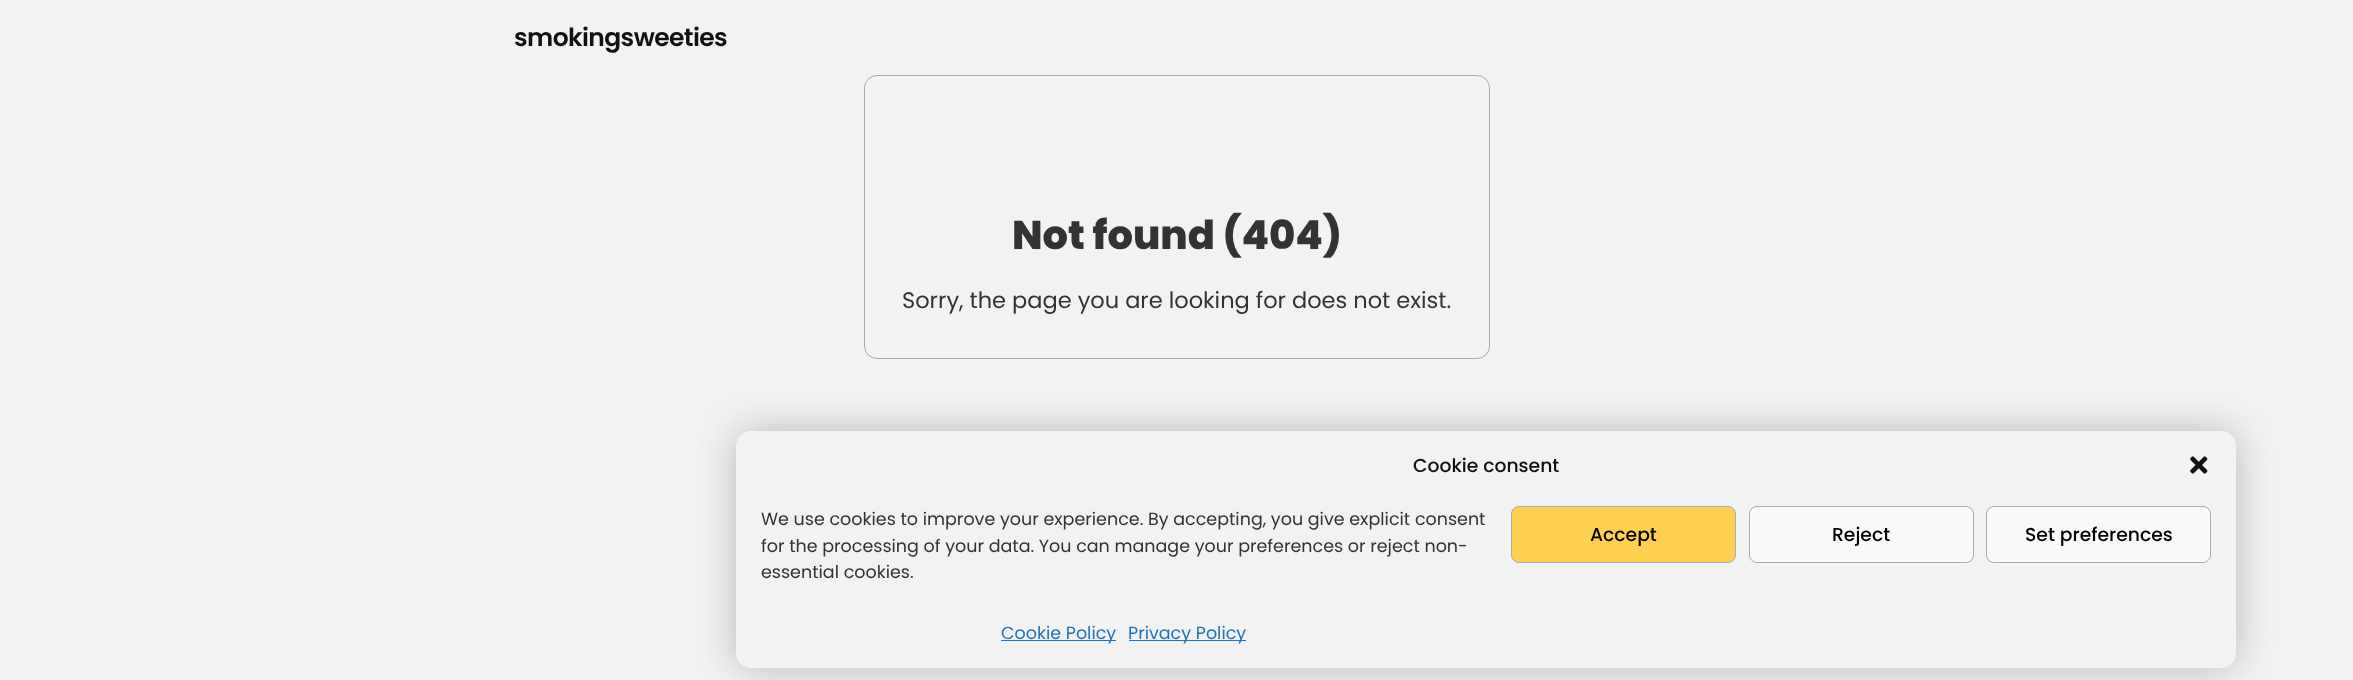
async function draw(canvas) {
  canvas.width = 2353;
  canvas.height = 680;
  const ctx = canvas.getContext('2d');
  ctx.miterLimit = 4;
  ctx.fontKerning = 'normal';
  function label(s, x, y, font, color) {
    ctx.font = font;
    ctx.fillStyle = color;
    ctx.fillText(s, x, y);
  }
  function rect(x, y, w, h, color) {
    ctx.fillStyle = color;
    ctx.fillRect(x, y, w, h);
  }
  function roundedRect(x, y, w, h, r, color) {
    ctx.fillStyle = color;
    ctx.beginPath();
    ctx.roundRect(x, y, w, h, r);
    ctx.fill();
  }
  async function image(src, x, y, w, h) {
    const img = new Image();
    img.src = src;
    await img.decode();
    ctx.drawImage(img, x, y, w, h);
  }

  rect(0, 0, 2353, 680, '#f2f2f2');
  ctx.letterSpacing = '-0.6px';
  label('smokingsweeties', 514, 46, '600 25px Poppins', '#111');
  ctx.beginPath();
  ctx.roundRect(864.5, 75.5, 625, 283, 12.5);
  ctx.strokeStyle = '#aaa';
  ctx.stroke();
  ctx.letterSpacing = '0px';
  label('Not found (404)', 1012, 249, '800 40px Poppins', '#333');
  label('Sorry, the page you are looking for does not exist.', 902, 308, '22.5px Poppins', '#333');
  ctx.fillStyle = '#80808080';
  ctx.filter = 'blur(19px)';
  ctx.beginPath();
  ctx.roundRect(736, 431, 1500, 237, 15);
  ctx.fill();
  ctx.filter = 'none';
  roundedRect(736, 431, 1500, 237, 15, '#f2f2f2');
  label('Cookie consent', 1413, 472, '500 18.75px Poppins', '#111');
  await image('assets/img1.png', 2190, 456, 18, 18);
  label('We use cookies to improve your experience. By accepting, you give explicit consent', 761, 525, '17.5px Poppins', '#333');
  label('for the processing of your data. You can manage your preferences or reject non-', 761, 552, '17.5px Poppins', '#333');
  label('essential cookies.', 761, 578, '17.5px Poppins', '#333');
  ctx.fillStyle = '#ffd04f';
  ctx.beginPath();
  ctx.roundRect(1511.5, 506.5, 224, 56, 7.5);
  ctx.fill();
  ctx.stroke();
  label('Accept', 1590, 541, '500 18.75px Poppins', '#000');
  ctx.fillStyle = '#f9f9f9';
  ctx.beginPath();
  ctx.roundRect(1749.5, 506.5, 224, 56, 7.5);
  ctx.fill();
  ctx.stroke();
  label('Reject', 1832, 541, '500 18.75px Poppins', '#000');
  ctx.fillStyle = '#f9f9f9';
  ctx.beginPath();
  ctx.roundRect(1986.5, 506.5, 224, 56, 7.5);
  ctx.fill();
  ctx.stroke();
  label('Set preferences', 2025, 541, '500 18.75px Poppins', '#000');
  rect(1001, 640, 115, 1, '#1e73be');
  label('Cookie Policy', 1001, 639, '17.5px Poppins', '#1e73be');
  rect(1129, 640, 117, 1, '#1e73be');
  label('Privacy Policy', 1128, 639, '17.5px Poppins', '#1e73be');
}

draw(document.querySelector('canvas'));
